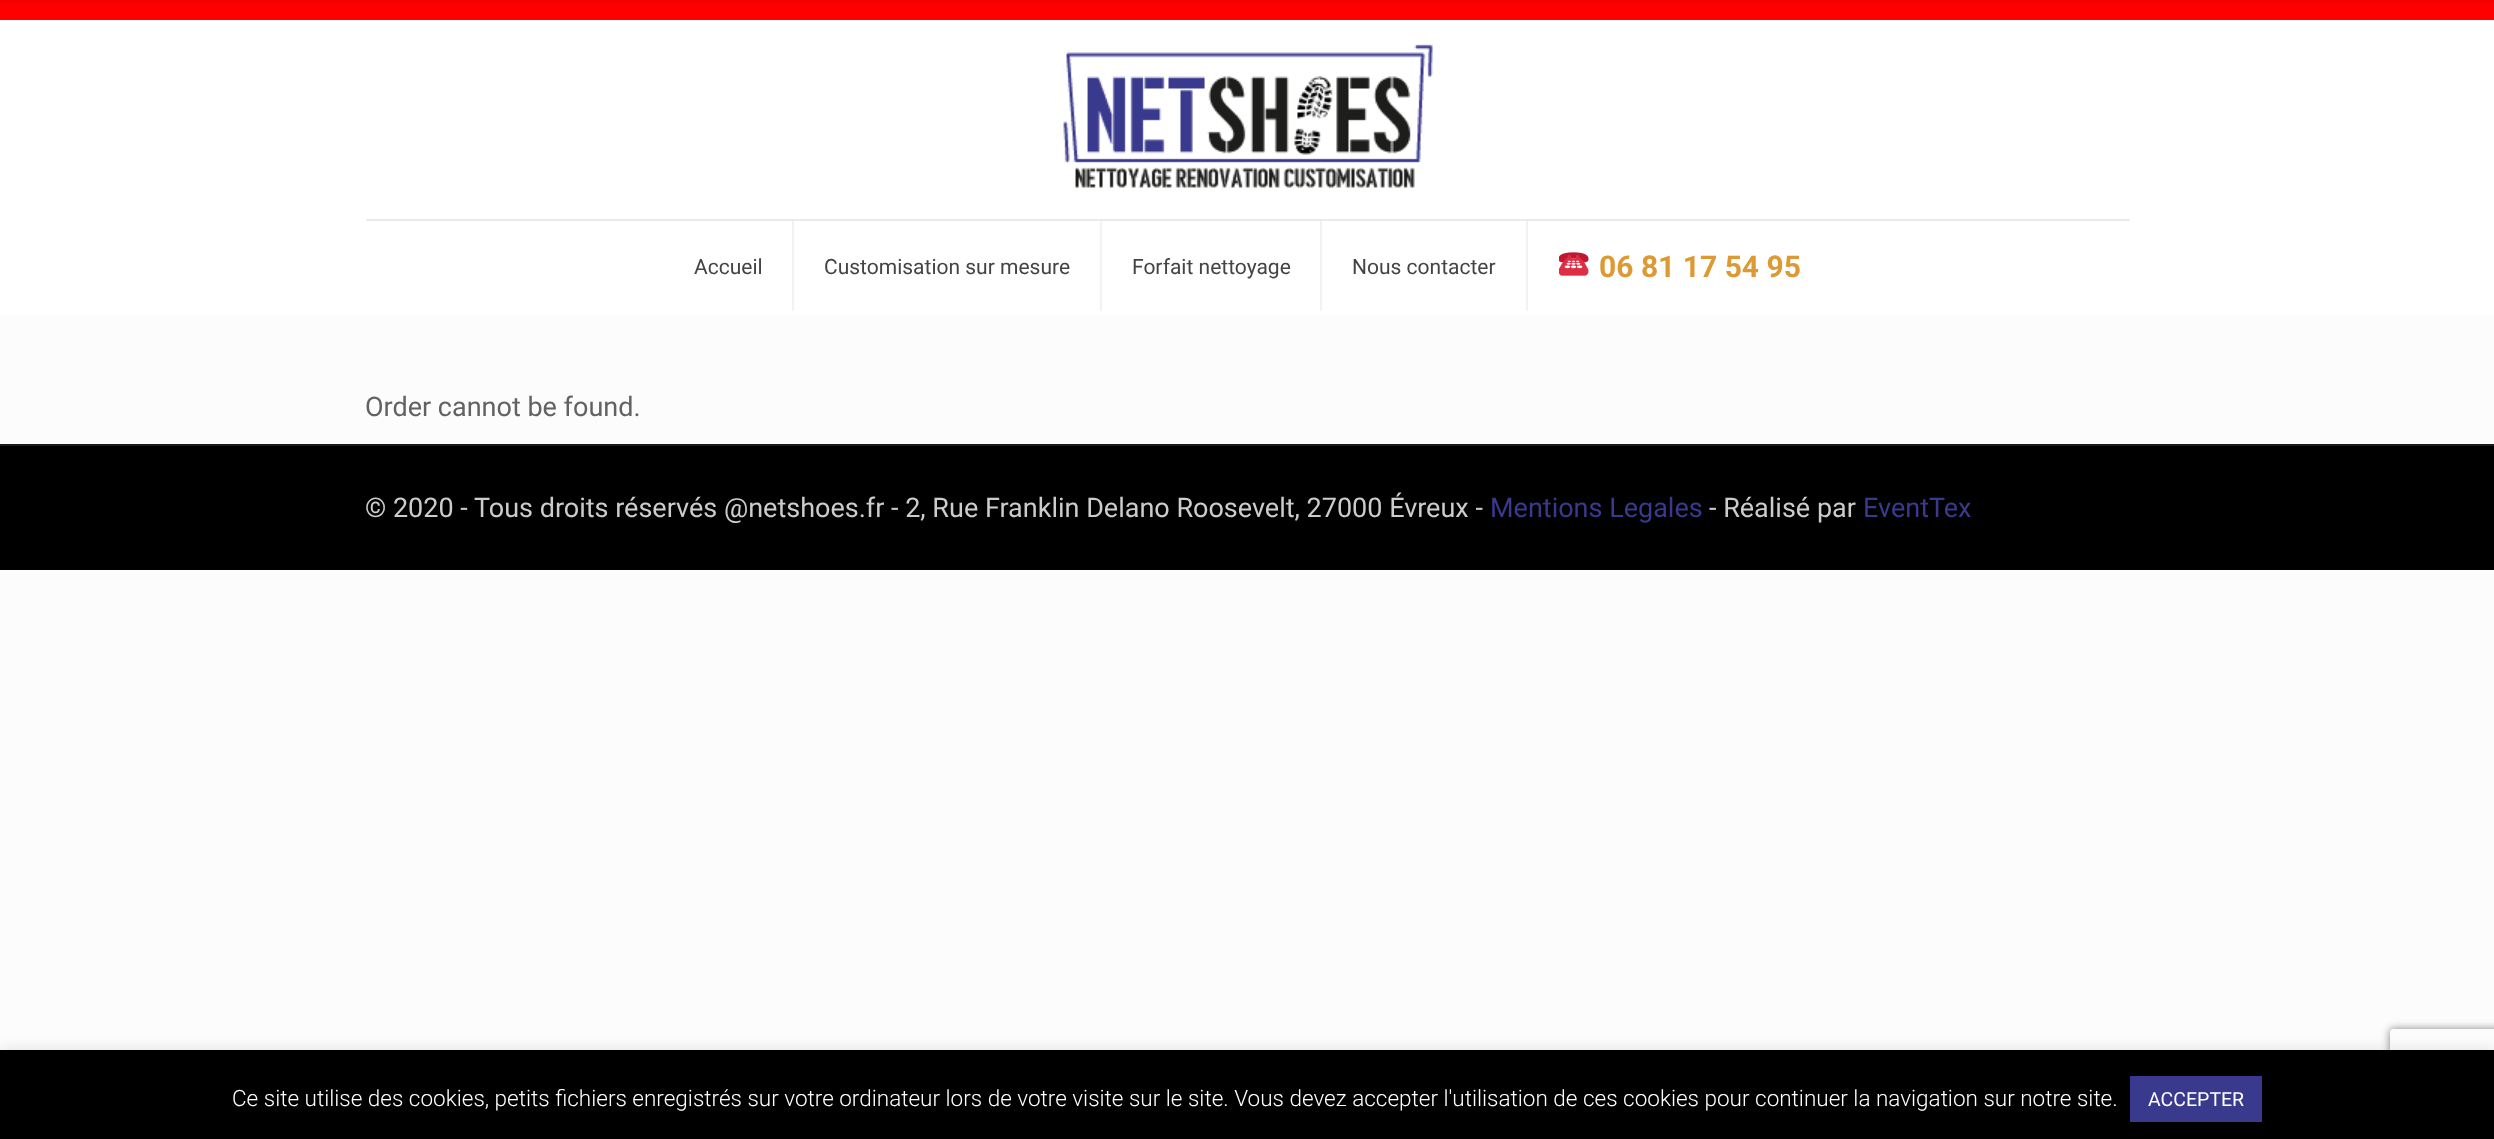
async function draw(canvas) {
  canvas.width = 2494;
  canvas.height = 1139;
  const ctx = canvas.getContext('2d');
  ctx.miterLimit = 4;
  ctx.fontKerning = 'normal';
  function label(s, x, y, font, color) {
    ctx.font = font;
    ctx.fillStyle = color;
    ctx.fillText(s, x, y);
  }
  function rect(x, y, w, h, color) {
    ctx.fillStyle = color;
    ctx.fillRect(x, y, w, h);
  }
  async function image(src, x, y, w, h) {
    const img = new Image();
    img.src = src;
    await img.decode();
    ctx.drawImage(img, x, y, w, h);
  }
  let path;

  rect(0, 0, 2494, 1139, '#fcfcfc');
  rect(0, 3, 2494, 17, '#f00');
  rect(0, 0, 2494, 3, '#f40000');
  rect(0, 20, 2494, 294, '#fff');
  rect(366, 219, 1764, 2, '#ebebeb');
  await image('assets/img1.png', 1063, 44, 370, 144);
  rect(792, 221, 2, 90, '#f2f2f2');
  label('Accueil', 694, 274, '21px Roboto', '#444');
  rect(1100, 221, 2, 90, '#f2f2f2');
  label('Customisation sur mesure', 824, 274, '21px Roboto', '#444');
  rect(1320, 221, 2, 90, '#f2f2f2');
  label('Forfait nettoyage', 1132, 274, '21px Roboto', '#444');
  rect(1526, 221, 2, 90, '#f2f2f2');
  label('Nous contacter', 1352, 274, '21px Roboto', '#444');
  await image('assets/img2.png', 1559, 252, 30, 24);
  label('06 81 17 54 95', 1599, 277, 'bold 30px Roboto', '#d93');
  label('Order cannot be found.', 365, 416, '27px Roboto', '#626262');
  rect(0, 446, 2494, 124, '#000');
  rect(0, 444, 2494, 2, '#1a1a1a');
  label('© 2020 - Tous droits réservés @netshoes.fr - 2, Rue Franklin Delano Roosevelt, 27000 Évreux -', 365, 517, '27px Roboto', '#ccc');
  label('Mentions Legales', 1490, 517, '27px Roboto', '#39398d');
  label('- Réalisé par', 1709, 517, '27px Roboto', '#ccc');
  label('EventTex', 1863, 517, '27px Roboto', '#39398d');
  ctx.fillStyle = '#acabab4d';
  ctx.filter = 'blur(7.5px)';
  ctx.beginPath();
  ctx.rect(0, 1049, 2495, 90);
  ctx.fill();
  ctx.filter = 'none';
  ctx.save();
  path = new Path2D('M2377 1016H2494V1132H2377ZM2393 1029H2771C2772.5 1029 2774 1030.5 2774 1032V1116C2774 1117.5 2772.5 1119 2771 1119H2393C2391.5 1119 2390 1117.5 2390 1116V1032C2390 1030.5 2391.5 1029 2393 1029Z');
  ctx.clip(path, 'evenodd');
  ctx.fillStyle = '#808080';
  ctx.filter = 'blur(4px)';
  ctx.beginPath();
  ctx.roundRect(2390, 1029, 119, 90, 3);
  ctx.fill();
  ctx.filter = 'none';
  ctx.restore();
  rect(0, 1050, 2494, 89, '#000');
  label('Ce site utilise des cookies, petits fichiers enregistrés sur votre ordinateur lors de votre visite sur le site. Vous devez accepter l\'utilisation de ces cookies pour continuer la navigation sur notre site.', 232, 1106, '300 22.5px Roboto', '#fff');
  rect(2130, 1076, 132, 46, '#39398d');
  label('ACCEPTER', 2148, 1106, '19.5px Roboto', '#fff');
}

draw(document.querySelector('canvas'));
